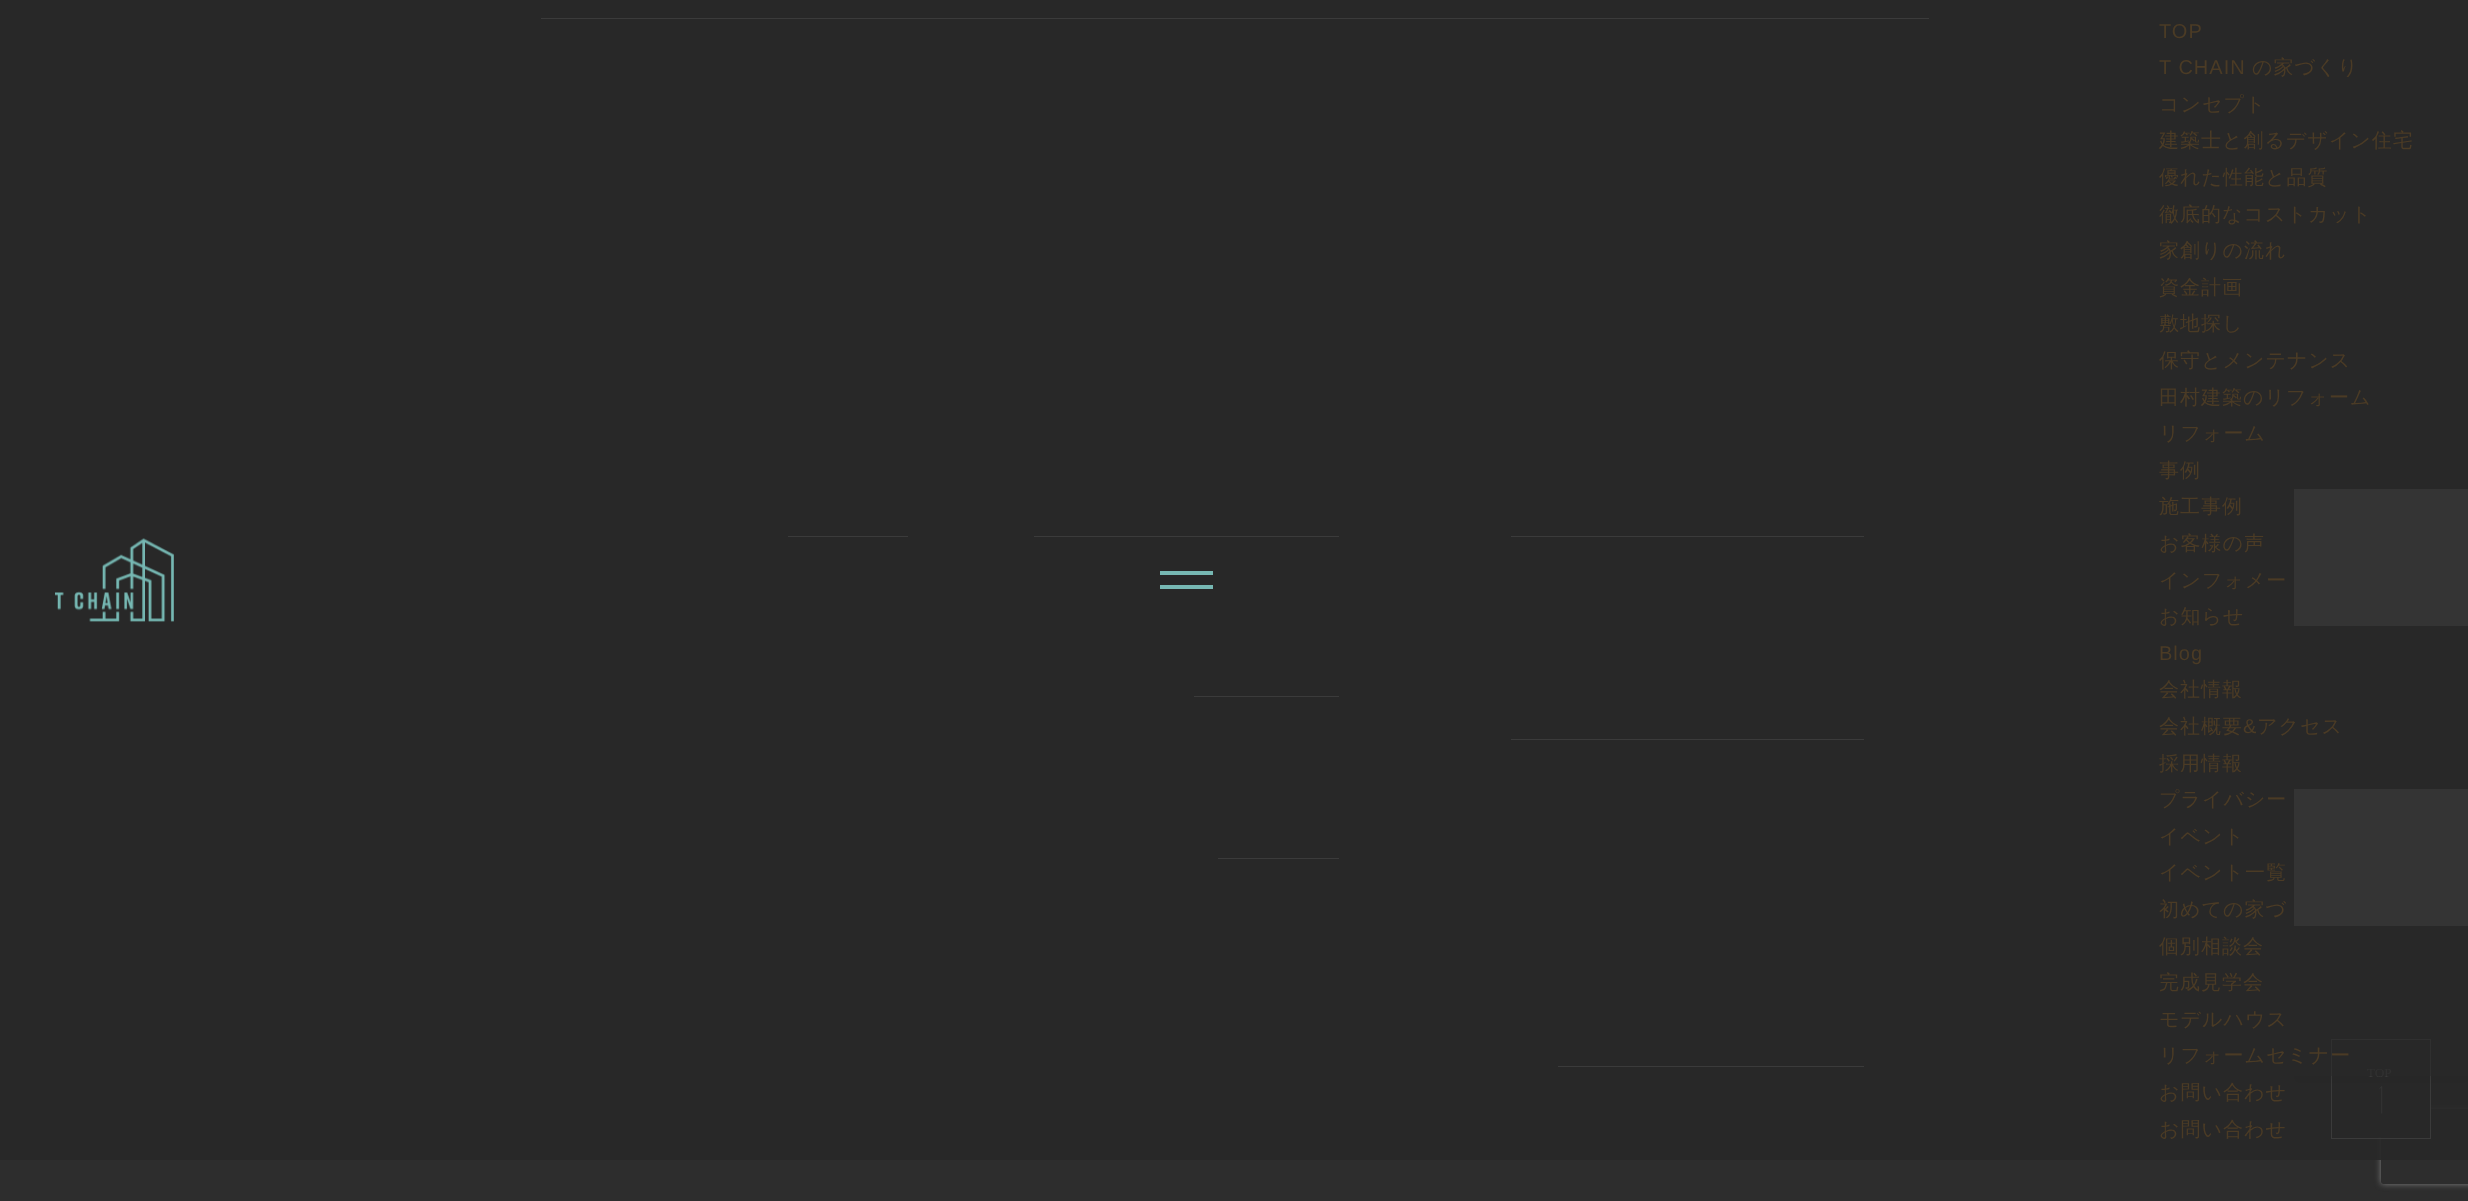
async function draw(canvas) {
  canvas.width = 2468;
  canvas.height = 1201;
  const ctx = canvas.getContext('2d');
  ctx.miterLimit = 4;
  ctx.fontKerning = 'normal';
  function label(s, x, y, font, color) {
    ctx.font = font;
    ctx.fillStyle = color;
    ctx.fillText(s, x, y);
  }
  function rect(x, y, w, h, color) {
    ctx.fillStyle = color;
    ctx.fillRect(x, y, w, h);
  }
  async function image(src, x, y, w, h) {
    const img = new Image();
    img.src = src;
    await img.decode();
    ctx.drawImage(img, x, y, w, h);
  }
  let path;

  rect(0, 0, 2468, 1201, '#2d2d2d');
  rect(541, 18, 1388, 1, '#fff');
  rect(788, 536, 120, 1, '#fff');
  rect(1034, 536, 305, 1, '#fff');
  rect(1194, 696, 145, 1, '#fff');
  rect(1218, 858, 121, 1, '#fff');
  rect(1511, 536, 353, 1, '#fff');
  rect(1511, 739, 353, 1, '#fff');
  rect(1558, 1066, 306, 1, '#fff');
  rect(2294, 489, 174, 137, '#ababab');
  rect(2294, 789, 174, 137, '#ababab');
  ctx.save();
  path = new Path2D('M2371 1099H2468V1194H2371ZM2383.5 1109H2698.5C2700 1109 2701 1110 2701 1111.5V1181.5C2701 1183 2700 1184 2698.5 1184H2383.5C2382 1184 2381 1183 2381 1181.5V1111.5C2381 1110 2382 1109 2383.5 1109Z');
  ctx.clip(path, 'evenodd');
  ctx.fillStyle = '#808080';
  ctx.filter = 'blur(3px)';
  ctx.beginPath();
  ctx.roundRect(2381, 1109, 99, 75, 2.5);
  ctx.fill();
  ctx.filter = 'none';
  ctx.restore();
  ctx.strokeStyle = '#fff';
  ctx.strokeRect(2331.5, 1039.5, 99, 99);
  await image('assets/img1.png', 2366, 1069, 64, 69);
  ctx.save();
  path = new Path2D('M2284 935H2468V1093H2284ZM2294 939H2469V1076H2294Z');
  ctx.clip(path, 'evenodd');
  ctx.fillStyle = '#00000017';
  ctx.filter = 'blur(3px)';
  ctx.beginPath();
  ctx.rect(2294, 945, 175, 138);
  ctx.fill();
  ctx.filter = 'none';
  ctx.restore();
  rect(2331, 1039, 100, 37, '#2d2d2d99');
  rect(0, 0, 2468, 1160, '#282828e8');
  await image('assets/img2.png', 55, 538, 119, 84);
  rect(1160, 571, 53, 4, '#77b8b3');
  rect(1160, 585, 53, 4, '#77b8b3');
  ctx.letterSpacing = '1px';
  label('TOP', 2159, 38, '20px Liberation Sans', '#4b3b25');
  label('T CHAIN', 2159, 74, '20px Liberation Sans', '#4b3b25');
  label('の家づくり', 2252, 74, '500 20px WenQuanYi Zen Hei', '#4b3b25');
  label('コンセプト', 2159, 111, '500 20px WenQuanYi Zen Hei', '#4b3b25');
  label('建築士と創るデザイン住宅', 2159, 147, '500 20px WenQuanYi Zen Hei', '#4b3b25');
  label('優れた性能と品質', 2159, 184, '500 20px WenQuanYi Zen Hei', '#4b3b25');
  label('徹底的なコストカット', 2159, 221, '500 20px WenQuanYi Zen Hei', '#4b3b25');
  label('家創りの流れ', 2159, 257, '500 20px WenQuanYi Zen Hei', '#4b3b25');
  label('資金計画', 2159, 294, '500 20px WenQuanYi Zen Hei', '#4b3b25');
  label('敷地探し', 2159, 330, '500 20px WenQuanYi Zen Hei', '#4b3b25');
  label('保守とメンテナンス', 2159, 367, '500 20px WenQuanYi Zen Hei', '#4b3b25');
  label('田村建築のリフォーム', 2159, 404, '500 20px WenQuanYi Zen Hei', '#4b3b25');
  label('リフォーム', 2159, 440, '500 20px WenQuanYi Zen Hei', '#4b3b25');
  label('事例', 2159, 477, '500 20px WenQuanYi Zen Hei', '#4b3b25');
  label('施工事例', 2159, 513, '500 20px WenQuanYi Zen Hei', '#4b3b25');
  label('お客様の声', 2159, 550, '500 20px WenQuanYi Zen Hei', '#4b3b25');
  label('インフォメー', 2159, 587, '500 20px WenQuanYi Zen Hei', '#4b3b25');
  label('お知らせ', 2159, 623, '500 20px WenQuanYi Zen Hei', '#4b3b25');
  label('Blog', 2159, 660, '20px Liberation Sans', '#4b3b25');
  label('会社情報', 2159, 696, '500 20px WenQuanYi Zen Hei', '#4b3b25');
  label('会社概要', 2159, 733, '500 20px WenQuanYi Zen Hei', '#4b3b25');
  label('&', 2243, 733, '20px Liberation Sans', '#4b3b25');
  label('アクセス', 2257, 733, '500 20px WenQuanYi Zen Hei', '#4b3b25');
  label('採用情報', 2159, 770, '500 20px WenQuanYi Zen Hei', '#4b3b25');
  label('プライバシー', 2159, 806, '500 20px WenQuanYi Zen Hei', '#4b3b25');
  label('イベント', 2159, 843, '500 20px WenQuanYi Zen Hei', '#4b3b25');
  label('イベント一覧', 2159, 879, '500 20px WenQuanYi Zen Hei', '#4b3b25');
  label('初めての家づ', 2159, 916, '500 20px WenQuanYi Zen Hei', '#4b3b25');
  label('個別相談会', 2159, 953, '500 20px WenQuanYi Zen Hei', '#4b3b25');
  label('完成見学会', 2159, 989, '500 20px WenQuanYi Zen Hei', '#4b3b25');
  label('モデルハウス', 2159, 1026, '500 20px WenQuanYi Zen Hei', '#4b3b25');
  label('リフォームセミナー', 2159, 1062, '500 20px WenQuanYi Zen Hei', '#4b3b25');
  label('お問い合わせ', 2159, 1099, '500 20px WenQuanYi Zen Hei', '#4b3b25');
  label('お問い合わせ', 2159, 1136, '500 20px WenQuanYi Zen Hei', '#4b3b25');
}

draw(document.querySelector('canvas'));
